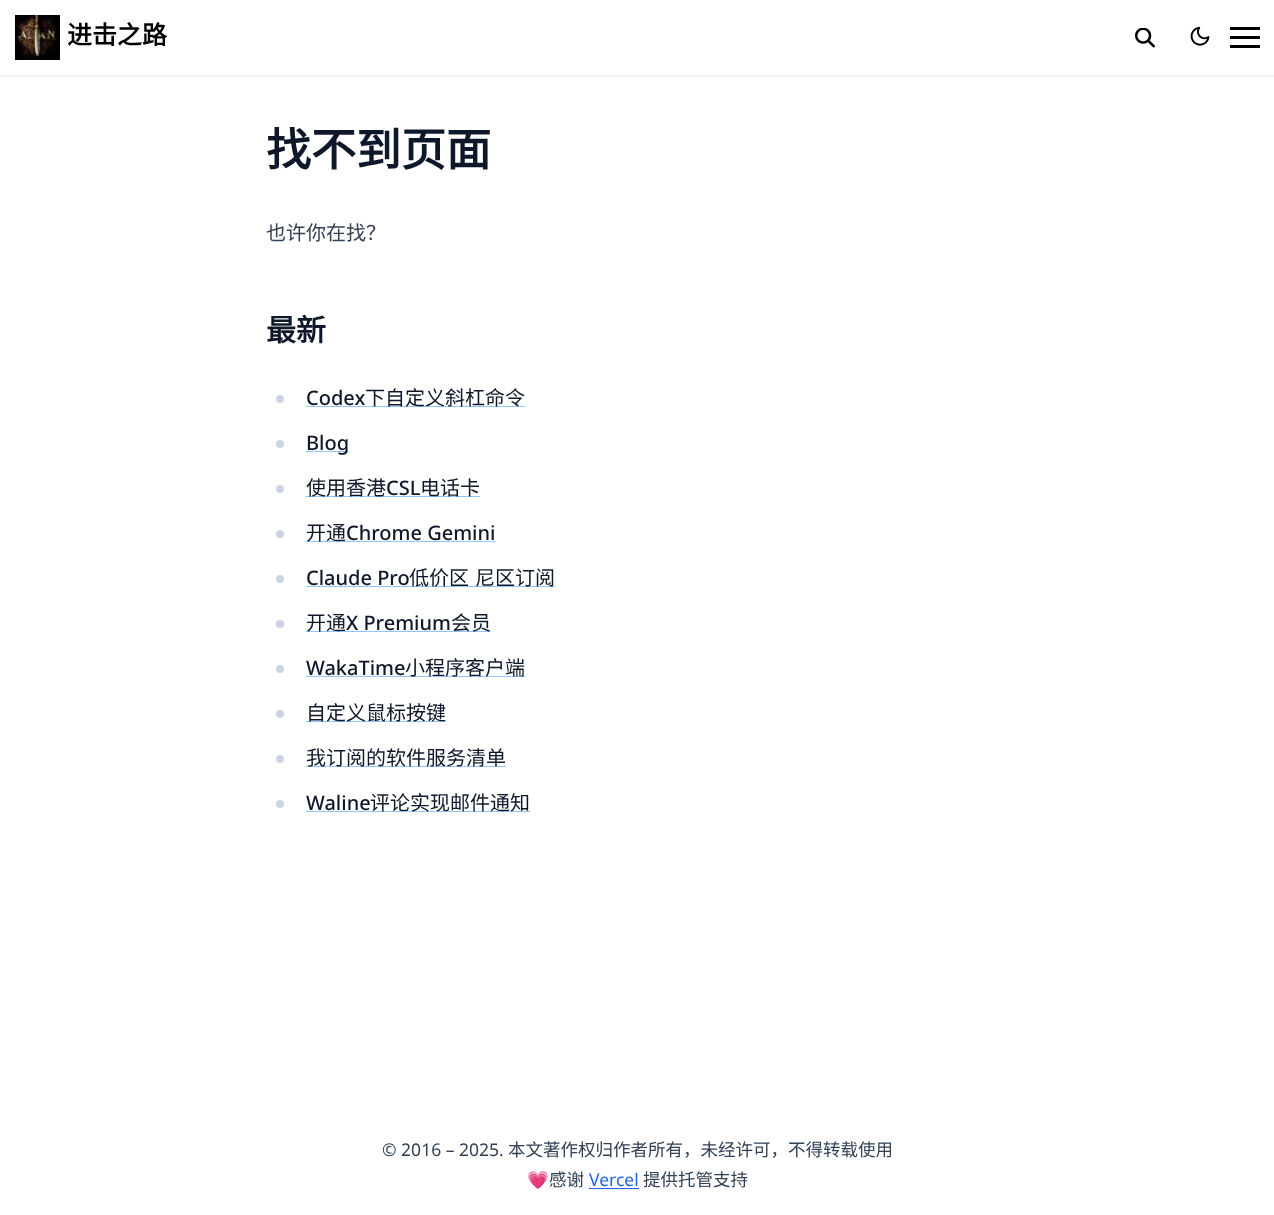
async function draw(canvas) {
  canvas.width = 1274;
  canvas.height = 1215;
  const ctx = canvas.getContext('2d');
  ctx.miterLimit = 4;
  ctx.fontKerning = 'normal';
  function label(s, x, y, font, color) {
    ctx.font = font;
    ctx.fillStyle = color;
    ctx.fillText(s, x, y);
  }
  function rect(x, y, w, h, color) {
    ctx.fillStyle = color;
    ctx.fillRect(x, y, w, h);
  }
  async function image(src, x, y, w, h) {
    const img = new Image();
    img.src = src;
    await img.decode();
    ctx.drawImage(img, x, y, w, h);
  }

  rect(0, 0, 1274, 1215, '#fff');
  ctx.save();
  ctx.beginPath();
  ctx.rect(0, 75, 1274, 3);
  ctx.clip();
  ctx.fillStyle = '#0000001a';
  ctx.filter = 'blur(2px)';
  ctx.beginPath();
  ctx.rect(0, 1, 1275, 75);
  ctx.fill();
  ctx.filter = 'none';
  ctx.restore();
  await image('assets/img1.png', 15, 15, 45, 45);
  label('进击之路', 67, 44, 'bold 25px Noto Sans CJK SC', '#000');
  await image('assets/img2.png', 1135, 28, 20, 20);
  await image('assets/img3.png', 1190, 26, 20, 20);
  await image('assets/img4.png', 1230, 27, 30, 21);
  label('找不到页面', 266, 166, 'bold 45px Noto Sans CJK SC', '#0f172a');
  label('也许你在找？', 266, 240, '20px Noto Sans CJK SC', '#334155');
  label('最新', 266, 341, 'bold 30px Noto Sans CJK SC', '#0f172a');
  ctx.fillStyle = '#cbd5e1';
  ctx.beginPath();
  ctx.arc(280, 399, 4, 0, 2 * Math.PI);
  ctx.fill();
  label('Codex', 306, 405, '500 20px Noto Sans', '#0f172a');
  rect(306, 406, 219, 1, '#93c5fd');
  label('下自定义斜杠命令', 365, 405, '20px Noto Sans CJK SC', '#0f172a');
  ctx.fillStyle = '#cbd5e1';
  ctx.beginPath();
  ctx.arc(280, 444, 4, 0, 2 * Math.PI);
  ctx.fill();
  rect(306, 451, 43, 1, '#93c5fd');
  label('Blog', 306, 450, '500 20px Noto Sans', '#0f172a');
  ctx.fillStyle = '#cbd5e1';
  ctx.beginPath();
  ctx.arc(280, 489, 4, 0, 2 * Math.PI);
  ctx.fill();
  rect(306, 496, 174, 1, '#93c5fd');
  label('使用香港', 306, 495, '20px Noto Sans CJK SC', '#0f172a');
  label('CSL', 386, 495, '500 20px Noto Sans', '#0f172a');
  label('电话卡', 420, 495, '20px Noto Sans CJK SC', '#0f172a');
  ctx.fillStyle = '#cbd5e1';
  ctx.beginPath();
  ctx.arc(280, 534, 4, 0, 2 * Math.PI);
  ctx.fill();
  rect(306, 541, 189, 1, '#93c5fd');
  label('开通', 306, 540, '20px Noto Sans CJK SC', '#0f172a');
  label('Chrome Gemini', 346, 540, '500 20px Noto Sans', '#0f172a');
  ctx.fillStyle = '#cbd5e1';
  ctx.beginPath();
  ctx.arc(280, 579, 4, 0, 2 * Math.PI);
  ctx.fill();
  label('Claude Pro', 306, 585, '500 20px Noto Sans', '#0f172a');
  rect(306, 586, 249, 1, '#93c5fd');
  label('低价区', 409, 585, '20px Noto Sans CJK SC', '#0f172a');
  label('尼区订阅', 475, 585, '20px Noto Sans CJK SC', '#0f172a');
  ctx.fillStyle = '#cbd5e1';
  ctx.beginPath();
  ctx.arc(280, 624, 4, 0, 2 * Math.PI);
  ctx.fill();
  rect(306, 631, 185, 1, '#93c5fd');
  label('开通', 306, 630, '20px Noto Sans CJK SC', '#0f172a');
  label('X Premium', 346, 630, '500 20px Noto Sans', '#0f172a');
  label('会员', 451, 630, '20px Noto Sans CJK SC', '#0f172a');
  ctx.fillStyle = '#cbd5e1';
  ctx.beginPath();
  ctx.arc(280, 669, 4, 0, 2 * Math.PI);
  ctx.fill();
  label('WakaTime', 306, 675, '500 20px Noto Sans', '#0f172a');
  rect(306, 676, 219, 1, '#93c5fd');
  label('小程序客户端', 405, 675, '20px Noto Sans CJK SC', '#0f172a');
  ctx.fillStyle = '#cbd5e1';
  ctx.beginPath();
  ctx.arc(280, 714, 4, 0, 2 * Math.PI);
  ctx.fill();
  rect(306, 721, 140, 1, '#93c5fd');
  label('自定义鼠标按键', 306, 720, '20px Noto Sans CJK SC', '#0f172a');
  ctx.fillStyle = '#cbd5e1';
  ctx.beginPath();
  ctx.arc(280, 759, 4, 0, 2 * Math.PI);
  ctx.fill();
  rect(306, 766, 200, 1, '#93c5fd');
  label('我订阅的软件服务清单', 306, 765, '20px Noto Sans CJK SC', '#0f172a');
  ctx.fillStyle = '#cbd5e1';
  ctx.beginPath();
  ctx.arc(280, 804, 4, 0, 2 * Math.PI);
  ctx.fill();
  label('Waline', 306, 810, '500 20px Noto Sans', '#0f172a');
  rect(306, 811, 224, 1, '#93c5fd');
  label('评论实现邮件通知', 370, 810, '20px Noto Sans CJK SC', '#0f172a');
  label('© 2016 – 2025.', 382, 1156, '17.5px Noto Sans', '#334155');
  label('本文著作权归作者所有，未经许可，不得转载使用', 508, 1156, '17.5px Noto Sans CJK SC', '#334155');
  label('💗', 527, 1186, '17.5px Noto Color Emoji', '#334155');
  label('感谢', 549, 1186, '17.5px Noto Sans CJK SC', '#334155');
  label('Vercel', 589, 1186, '17.5px Noto Sans', '#2563eb');
  rect(589, 1188, 50, 1, '#2563eb');
  label('提供托管支持', 643, 1186, '17.5px Noto Sans CJK SC', '#334155');
}

draw(document.querySelector('canvas'));
